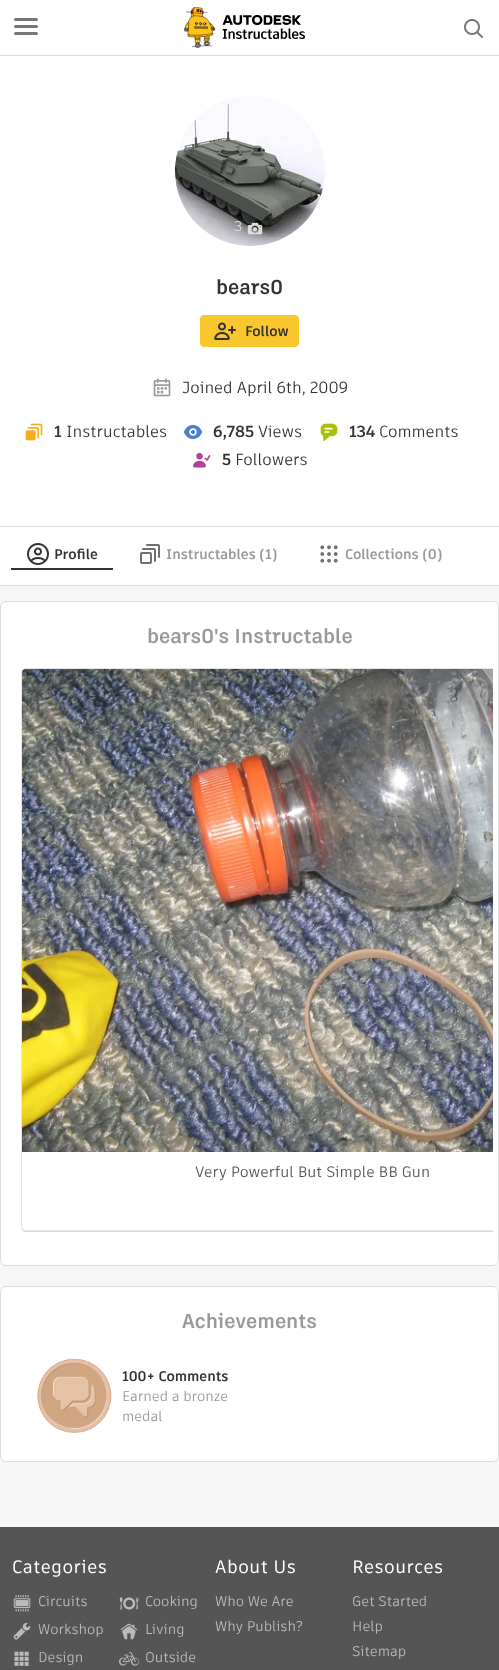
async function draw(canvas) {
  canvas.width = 499;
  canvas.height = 1670;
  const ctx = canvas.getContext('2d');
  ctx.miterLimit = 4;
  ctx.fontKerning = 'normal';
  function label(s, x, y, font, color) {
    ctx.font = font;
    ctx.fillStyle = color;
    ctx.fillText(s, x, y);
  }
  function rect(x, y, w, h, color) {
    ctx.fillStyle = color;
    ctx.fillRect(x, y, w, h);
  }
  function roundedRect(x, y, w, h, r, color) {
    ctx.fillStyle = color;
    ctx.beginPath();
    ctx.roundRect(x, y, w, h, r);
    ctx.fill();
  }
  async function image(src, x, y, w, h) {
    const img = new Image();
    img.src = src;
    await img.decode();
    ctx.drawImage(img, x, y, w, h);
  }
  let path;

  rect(0, 0, 499, 1670, '#fff');
  rect(0, 55, 499, 1, '#ddd');
  roundedRect(14, 18, 24, 3, 1.5, '#777');
  roundedRect(14, 25, 24, 3, 1.5, '#777');
  roundedRect(14, 32, 24, 3, 1.5, '#777');
  await image('assets/img1.png', 184, 7, 121, 41);
  await image('assets/img2.png', 464, 19, 19, 19);
  rect(0, 586, 499, 941, '#f6f6f6');
  rect(0, 526, 499, 1, '#ddd');
  await image('assets/img3.png', 175, 96, 150, 150);
  label('3', 234, 231, '14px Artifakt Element', '#ddd');
  await image('assets/img4.png', 247, 222, 16, 13);
  label('bears0', 216, 294, 'bold 20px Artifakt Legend', '#333');
  ctx.fillStyle = '#fac62d';
  ctx.beginPath();
  ctx.roundRect(200.5, 315.5, 98, 31, 3.5);
  ctx.fill();
  ctx.strokeStyle = '#fac62d';
  ctx.stroke();
  await image('assets/img5.png', 214, 322, 22, 18);
  label('Follow', 245, 336, 'bold 14px Artifakt Element', '#333');
  await image('assets/img6.png', 153, 378, 18, 19);
  label('Joined April 6th, 2009', 182, 393, '16px Artifakt Element', '#333');
  await image('assets/img7.png', 25, 423, 18, 18);
  label('1', 54, 437, 'bold 16px Artifakt Element', '#333');
  label('Instructables', 66, 437, '16px Artifakt Element', '#333');
  await image('assets/img8.png', 183, 424, 20, 16);
  label('6,785', 213, 437, 'bold 16px Artifakt Element', '#333');
  label('Views', 258, 437, '16px Artifakt Element', '#333');
  await image('assets/img9.png', 320, 423, 18, 18);
  label('134', 349, 437, 'bold 16px Artifakt Element', '#333');
  label('Comments', 379, 437, '16px Artifakt Element', '#333');
  await image('assets/img10.png', 193, 452, 18, 16);
  label('5', 222, 465, 'bold 16px Artifakt Element', '#333');
  label('Followers', 235, 465, '16px Artifakt Element', '#333');
  rect(0, 585, 499, 1, '#ddd');
  rect(11, 568, 102, 2, '#333');
  await image('assets/img11.png', 27, 543, 22, 22);
  label('Profile', 54, 559, 'bold 14px Artifakt Element', '#333');
  await image('assets/img12.png', 140, 544, 20, 20);
  label('Instructables (1)', 166, 559, 'bold 14px Artifakt Element', '#999');
  await image('assets/img13.png', 320, 545, 18, 18);
  label('Collections (0)', 345, 559, 'bold 14px Artifakt Element', '#999');
  ctx.fillStyle = '#fff';
  ctx.beginPath();
  ctx.roundRect(0.5, 601.5, 498, 664, 5.5);
  ctx.fill();
  ctx.strokeStyle = '#ddd';
  ctx.stroke();
  label('bears0\'s Instructable', 147, 643, 'bold 20px Artifakt Legend', '#999');
  ctx.save();
  ctx.beginPath();
  ctx.rect(21, 659, 472, 586);
  ctx.clip();
  ctx.fillStyle = '#d9d9d9';
  path = new Path2D('M21 1226V1227C21 1230 23 1232 26 1232H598C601 1232 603 1230 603 1227V1226C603 1229 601 1231 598 1231H26C23 1231 21 1229 21 1226Z');
  ctx.fill(path);
  ctx.restore();
  ctx.fillStyle = '#fff';
  ctx.beginPath();
  ctx.roundRect(21, 668, 472, 563, [5, 0, 0, 5]);
  ctx.fill();
  ctx.save();
  ctx.beginPath();
  ctx.rect(21, 659, 472, 586);
  ctx.clip();
  ctx.beginPath();
  ctx.roundRect(21.5, 668.5, 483, 562, 4.5);
  ctx.strokeStyle = '#0000001a';
  ctx.stroke();
  ctx.restore();
  await image('assets/img14.png', 22, 669, 471, 483);
  label('Very Powerful But Simple BB Gun', 195, 1177, '15px Artifakt Element', '#555');
  ctx.fillStyle = '#fff';
  ctx.beginPath();
  ctx.roundRect(0.5, 1286.5, 498, 175, 5.5);
  ctx.fill();
  ctx.stroke();
  label('Achievements', 182, 1328, 'bold 20px Artifakt Legend', '#999');
  await image('assets/img15.png', 37, 1358, 75, 75);
  label('100+ Comments', 122, 1381, 'bold 14px Artifakt Element', '#333');
  label('Earned a bronze', 122, 1401, '14px Artifakt Element', '#999');
  label('medal', 122, 1421, '14px Artifakt Element', '#999');
  rect(0, 1527, 499, 143, '#555');
  ctx.letterSpacing = '0.5px';
  label('Categories', 12, 1573, '500 18px Artifakt Element', '#fff');
  await image('assets/img16.png', 13, 1595, 18, 17);
  ctx.letterSpacing = '0px';
  label('Circuits', 38, 1606, '14px Artifakt Element', '#bbb');
  await image('assets/img17.png', 119, 1597, 20, 13);
  label('Cooking', 145, 1606, '14px Artifakt Element', '#bbb');
  await image('assets/img18.png', 13, 1623, 18, 17);
  label('Workshop', 38, 1634, '14px Artifakt Element', '#bbb');
  await image('assets/img19.png', 120, 1623, 18, 17);
  label('Living', 145, 1634, '14px Artifakt Element', '#bbb');
  await image('assets/img20.png', 14, 1651, 15, 15);
  label('Design', 38, 1662, '14px Artifakt Element', '#bbb');
  await image('assets/img21.png', 119, 1651, 20, 15);
  label('Outside', 145, 1662, '14px Artifakt Element', '#bbb');
  ctx.letterSpacing = '0.5px';
  label('About Us', 215, 1573, '500 18px Artifakt Element', '#fff');
  ctx.letterSpacing = '0px';
  label('Who We Are', 215, 1606, '14px Artifakt Element', '#bbb');
  label('Why Publish?', 215, 1631, '14px Artifakt Element', '#bbb');
  ctx.letterSpacing = '0.5px';
  label('Resources', 352, 1573, '500 18px Artifakt Element', '#fff');
  ctx.letterSpacing = '0px';
  label('Get Started', 352, 1606, '14px Artifakt Element', '#bbb');
  label('Help', 352, 1631, '14px Artifakt Element', '#bbb');
  label('Sitemap', 352, 1656, '14px Artifakt Element', '#bbb');
}

draw(document.querySelector('canvas'));
